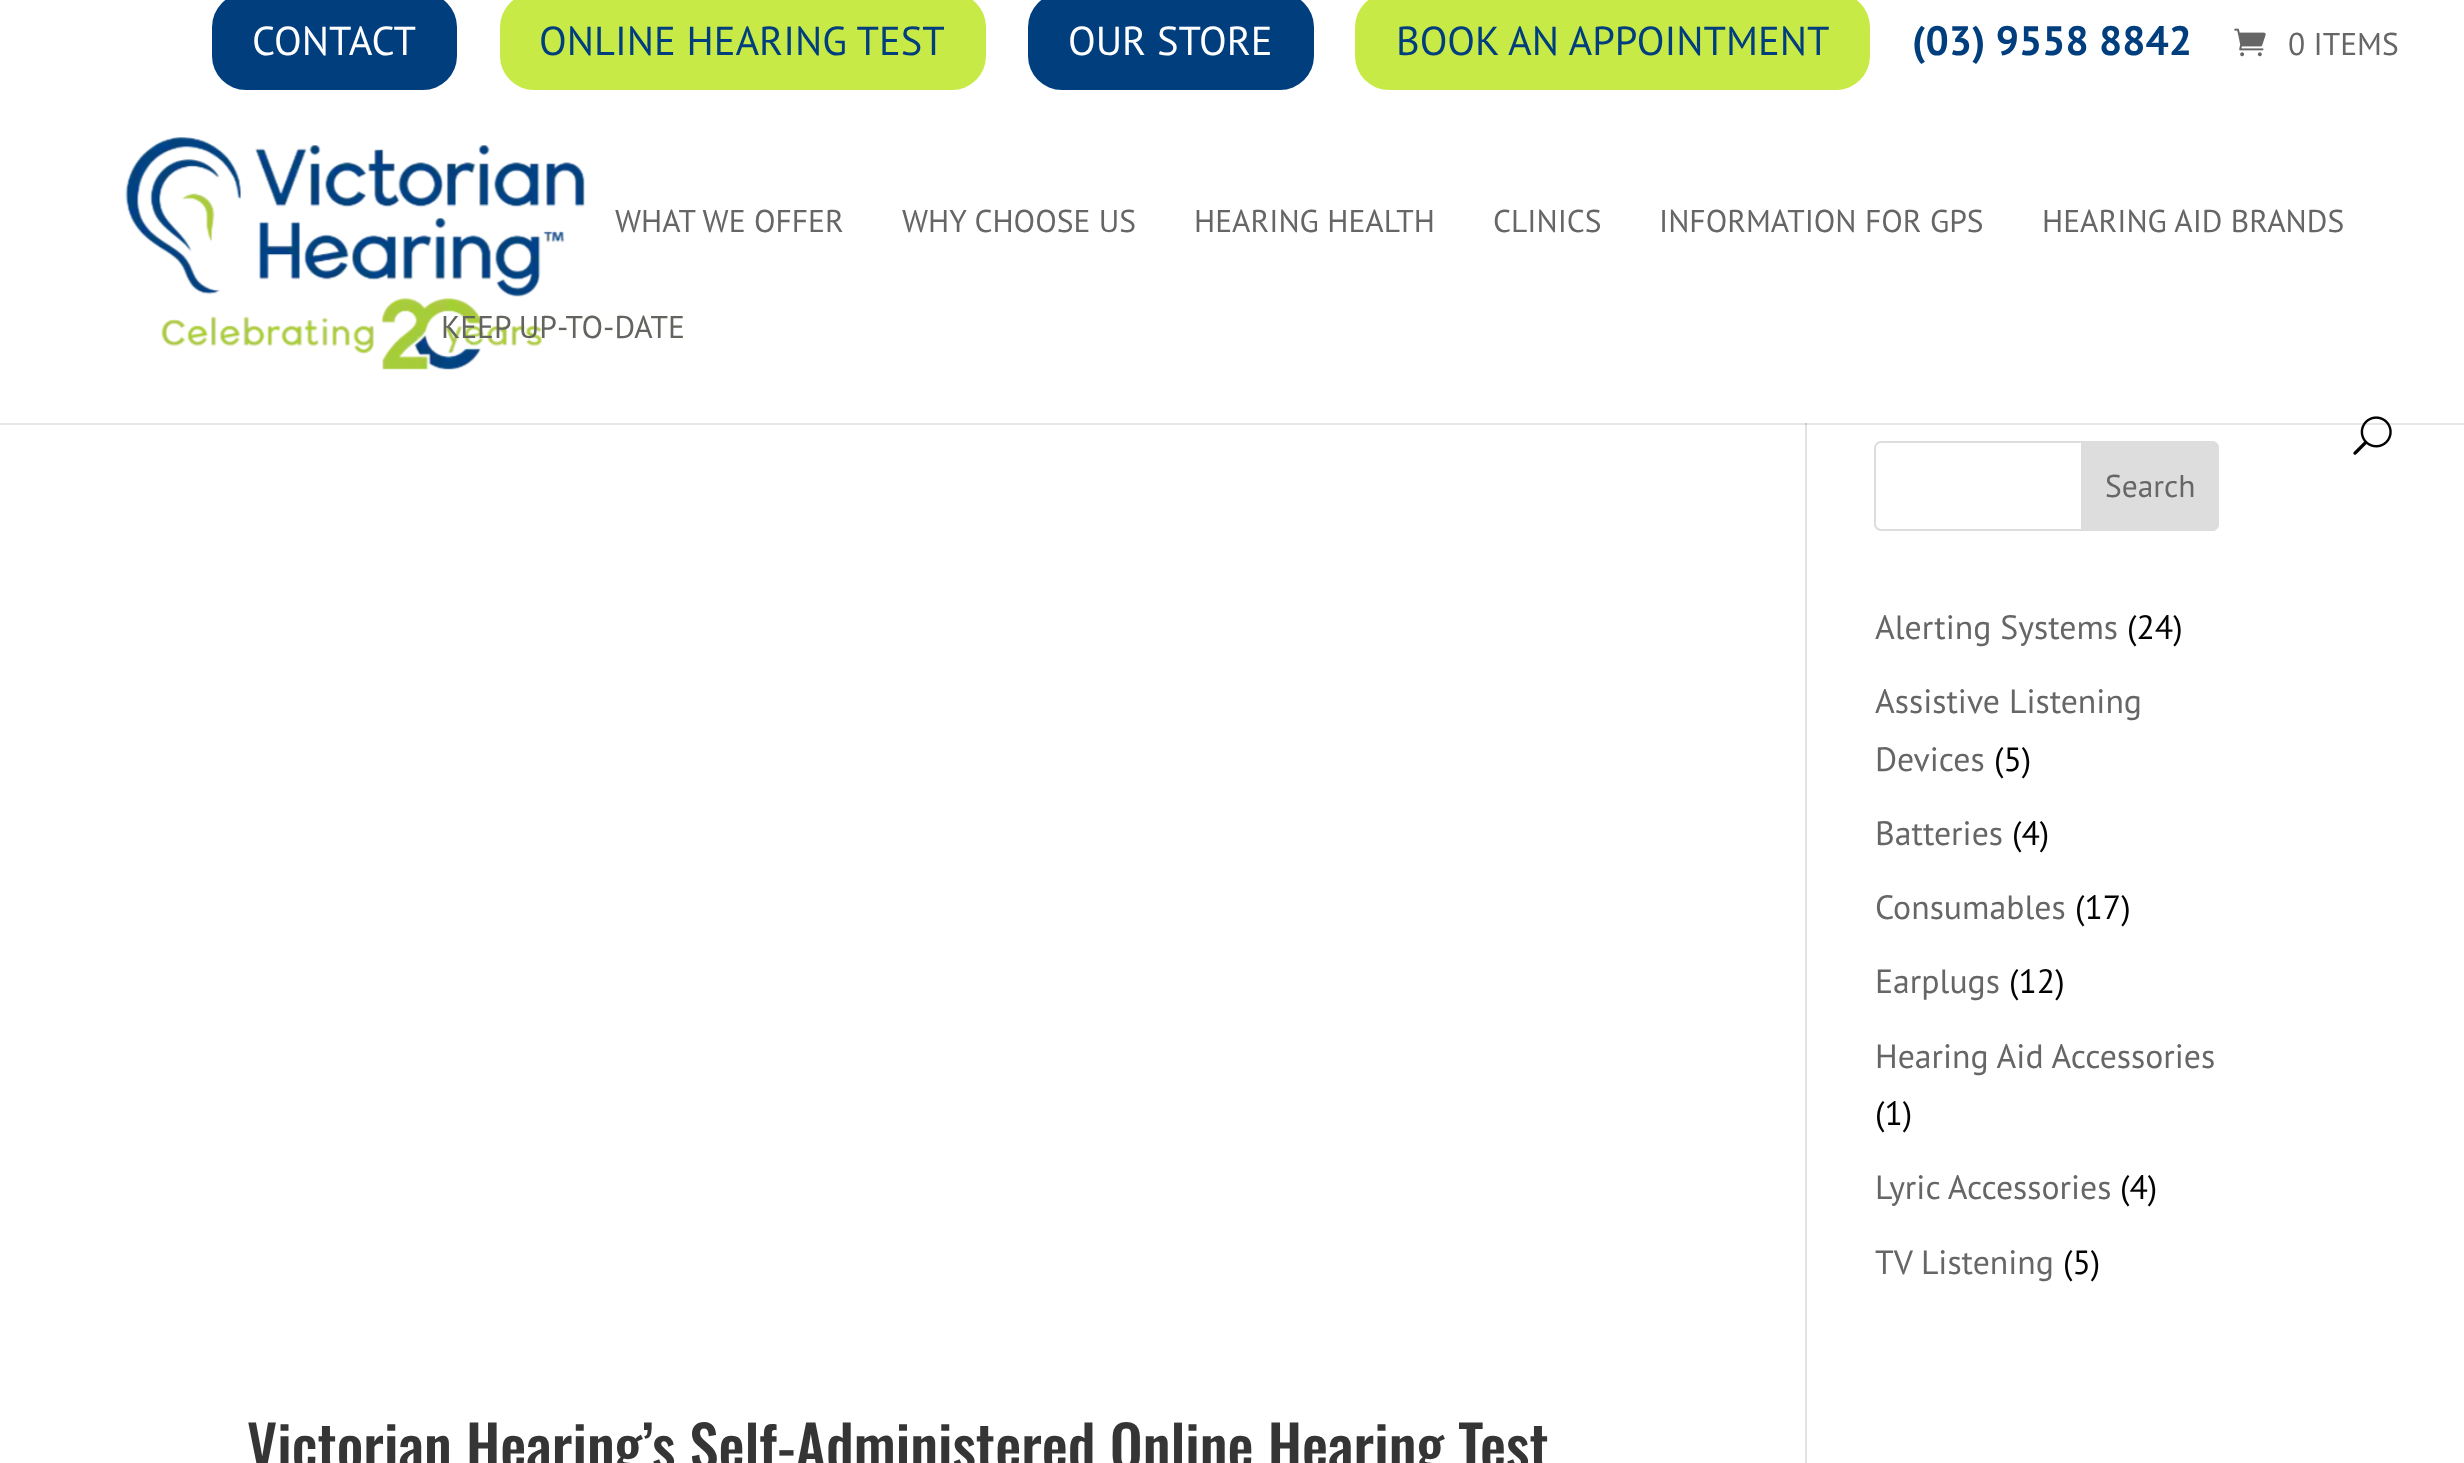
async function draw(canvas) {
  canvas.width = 2464;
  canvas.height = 1463;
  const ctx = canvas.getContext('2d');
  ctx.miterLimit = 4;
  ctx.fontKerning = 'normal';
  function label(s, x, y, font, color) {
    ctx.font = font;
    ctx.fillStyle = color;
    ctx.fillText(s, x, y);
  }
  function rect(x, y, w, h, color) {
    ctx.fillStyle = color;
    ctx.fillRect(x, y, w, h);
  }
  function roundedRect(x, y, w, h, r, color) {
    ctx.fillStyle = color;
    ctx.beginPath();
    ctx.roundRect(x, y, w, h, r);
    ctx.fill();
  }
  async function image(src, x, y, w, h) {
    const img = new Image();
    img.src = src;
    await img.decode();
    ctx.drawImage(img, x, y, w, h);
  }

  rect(0, 0, 2464, 1463, '#fff');
  rect(0, 423, 2464, 2, '#e6e6e6');
  roundedRect(212, -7, 245, 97, 34, '#003e7e');
  label('CONTACT', 252, 55, '40.5px PT Sans', '#fff');
  roundedRect(500, -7, 486, 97, 34, '#c7ea46');
  label('ONLINE HEARING TEST', 539, 55, '40.5px PT Sans', '#003e7e');
  roundedRect(1028, -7, 286, 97, 34, '#003e7e');
  label('OUR STORE', 1068, 55, '40.5px PT Sans', '#fff');
  roundedRect(1355, -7, 515, 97, 34, '#c7ea46');
  label('BOOK AN APPOINTMENT', 1396, 55, '40.5px PT Sans', '#003e7e');
  label('(03) 9558 8842', 1912, 55, 'bold 41px PT Sans', '#003e7e');
  await image('assets/img1.png', 2234, 28, 32, 29);
  label('0 ITEMS', 2288, 55, '31.5px PT Sans', '#666');
  await image('assets/img2.png', 125, 137, 460, 233);
  label('WHAT WE OFFER', 615, 232, '31.5px PT Sans', '#666');
  label('WHY CHOOSE US', 902, 232, '31.5px PT Sans', '#666');
  label('HEARING HEALTH', 1194, 232, '31.5px PT Sans', '#666');
  label('CLINICS', 1493, 232, '31.5px PT Sans', '#666');
  label('INFORMATION FOR GPS', 1659, 232, '31.5px PT Sans', '#666');
  label('HEARING AID BRANDS', 2042, 232, '31.5px PT Sans', '#666');
  label('KEEP UP-TO-DATE', 441, 338, '31.5px PT Sans', '#63645e');
  await image('assets/img3.png', 2353, 416, 39, 39);
  rect(1805, 425, 2, 1038, '#e2e2e2');
  rect(1805, 423, 2, 2, '#cbcbcb');
  ctx.beginPath();
  ctx.roundRect(1875, 442, 343, 88, 6);
  ctx.strokeStyle = '#ddd';
  ctx.lineWidth = 2;
  ctx.stroke();
  ctx.fillStyle = '#ddd';
  ctx.beginPath();
  ctx.roundRect(2082, 442, 136, 88, [0, 6, 6, 0]);
  ctx.fill();
  ctx.stroke();
  label('Search', 2105, 497, '31.5px PT Sans', '#666');
  label('Alerting Systems', 1875, 639, '33.75px PT Sans', '#666');
  label('(24)', 2127, 639, '33.75px PT Sans', '#020202');
  label('Assistive Listening', 1875, 713, '33.75px PT Sans', '#666');
  label('Devices', 1875, 771, '33.75px PT Sans', '#666');
  label('(5)', 1994, 771, '33.75px PT Sans', '#020202');
  label('Batteries', 1875, 845, '33.75px PT Sans', '#666');
  label('(4)', 2012, 845, '33.75px PT Sans', '#020202');
  label('Consumables', 1875, 919, '33.75px PT Sans', '#666');
  label('(17)', 2075, 919, '33.75px PT Sans', '#020202');
  label('Earplugs', 1875, 993, '33.75px PT Sans', '#666');
  label('(12)', 2009, 993, '33.75px PT Sans', '#020202');
  label('Hearing Aid Accessories', 1875, 1068, '33.75px PT Sans', '#666');
  label('(1)', 1875, 1125, '33.75px PT Sans', '#020202');
  label('Lyric Accessories', 1875, 1199, '33.75px PT Sans', '#666');
  label('(4)', 2120, 1199, '33.75px PT Sans', '#020202');
  label('TV Listening', 1875, 1274, '33.75px PT Sans', '#666');
  label('(5)', 2063, 1274, '33.75px PT Sans', '#020202');
  label('Victorian Hearing’s Self-Administered Online Hearing Test', 247, 1470, '500 58.5px Oswald', '#353535');
}

draw(document.querySelector('canvas'));
